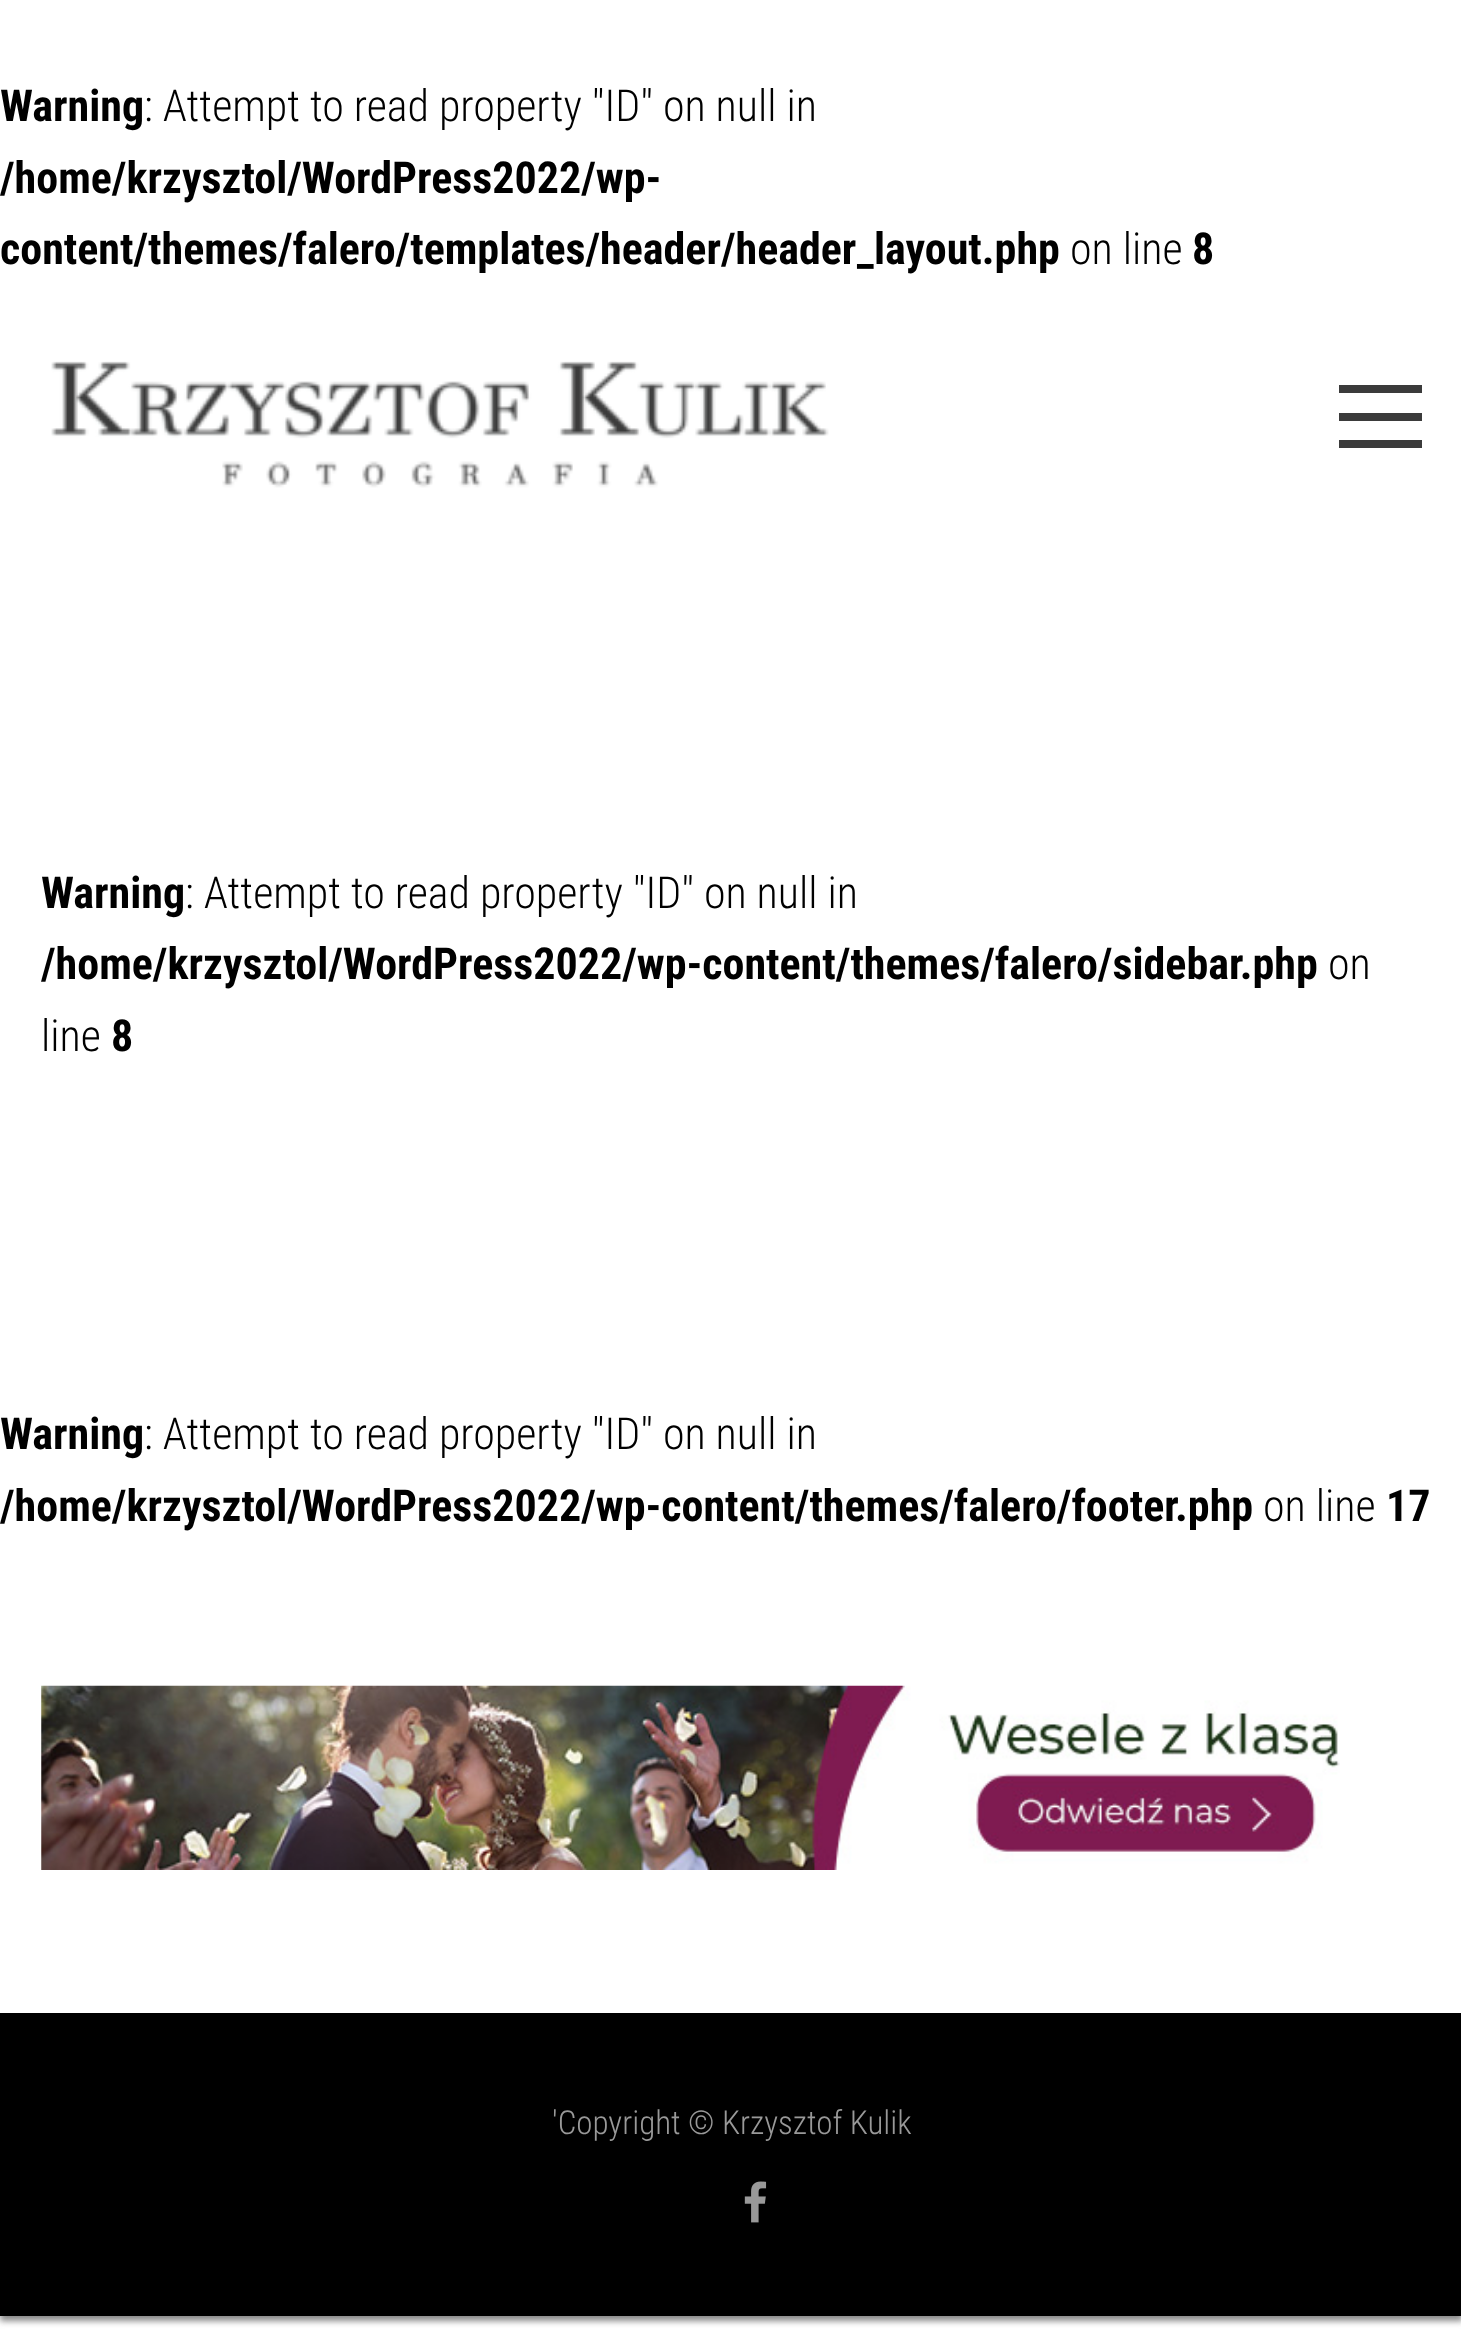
async function draw(canvas) {
  canvas.width = 1461;
  canvas.height = 2350;
  const ctx = canvas.getContext('2d');
  ctx.miterLimit = 4;
  ctx.fontKerning = 'normal';
  function label(s, x, y, font, color) {
    ctx.font = font;
    ctx.fillStyle = color;
    ctx.fillText(s, x, y);
  }
  function rect(x, y, w, h, color) {
    ctx.fillStyle = color;
    ctx.fillRect(x, y, w, h);
  }
  async function image(src, x, y, w, h) {
    const img = new Image();
    img.src = src;
    await img.decode();
    ctx.drawImage(img, x, y, w, h);
  }

  rect(0, 0, 1461, 2350, '#fff');
  ctx.fillStyle = '#888';
  ctx.filter = 'blur(3px)';
  ctx.beginPath();
  ctx.rect(0, 6, 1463, 2315);
  ctx.fill();
  ctx.filter = 'none';
  rect(0, 0, 1461, 2013, '#fff');
  label('Warning', 0, 121, 'bold 44px Roboto Condensed', '#000');
  label(': Attempt to read property "ID" on null in', 144, 121, '300 44px Roboto Condensed', '#000');
  label('/home/krzysztol/WordPress2022/wp-', 0, 193, 'bold 44px Roboto Condensed', '#000');
  label('content/themes/falero/templates/header/header_layout.php', 0, 264, 'bold 44px Roboto Condensed', '#000');
  label('on line', 1070, 264, '300 44px Roboto Condensed', '#000');
  label('8', 1192, 264, 'bold 44px Roboto Condensed', '#000');
  await image('assets/img1.png', 51, 361, 778, 127);
  rect(1339, 385, 83, 8, '#3b3b3b');
  rect(1339, 413, 83, 8, '#3b3b3b');
  rect(1339, 440, 83, 8, '#3b3b3b');
  label('Warning', 41, 908, 'bold 44px Roboto Condensed', '#000');
  label(': Attempt to read property "ID" on null in', 185, 908, '300 44px Roboto Condensed', '#000');
  label('/home/krzysztol/WordPress2022/wp-content/themes/falero/sidebar.php', 41, 979, 'bold 44px Roboto Condensed', '#000');
  label('on', 1328, 979, '300 44px Roboto Condensed', '#000');
  label('line', 41, 1051, '300 44px Roboto Condensed', '#000');
  label('8', 111, 1051, 'bold 44px Roboto Condensed', '#000');
  label('Warning', 0, 1449, 'bold 44px Roboto Condensed', '#000');
  label(': Attempt to read property "ID" on null in', 144, 1449, '300 44px Roboto Condensed', '#000');
  label('/home/krzysztol/WordPress2022/wp-content/themes/falero/footer.php', 0, 1521, 'bold 44px Roboto Condensed', '#000');
  label('on line', 1263, 1521, '300 44px Roboto Condensed', '#000');
  label('17', 1386, 1521, 'bold 44px Roboto Condensed', '#000');
  await image('assets/img2.png', 41, 1685, 1299, 185);
  rect(0, 2013, 1461, 303, '#000');
  label('\'Copyright © Krzysztof Kulik', 552, 2134, '300 33px Roboto Condensed', '#999');
  await image('assets/img3.png', 744, 2181, 23, 42);
}

draw(document.querySelector('canvas'));
